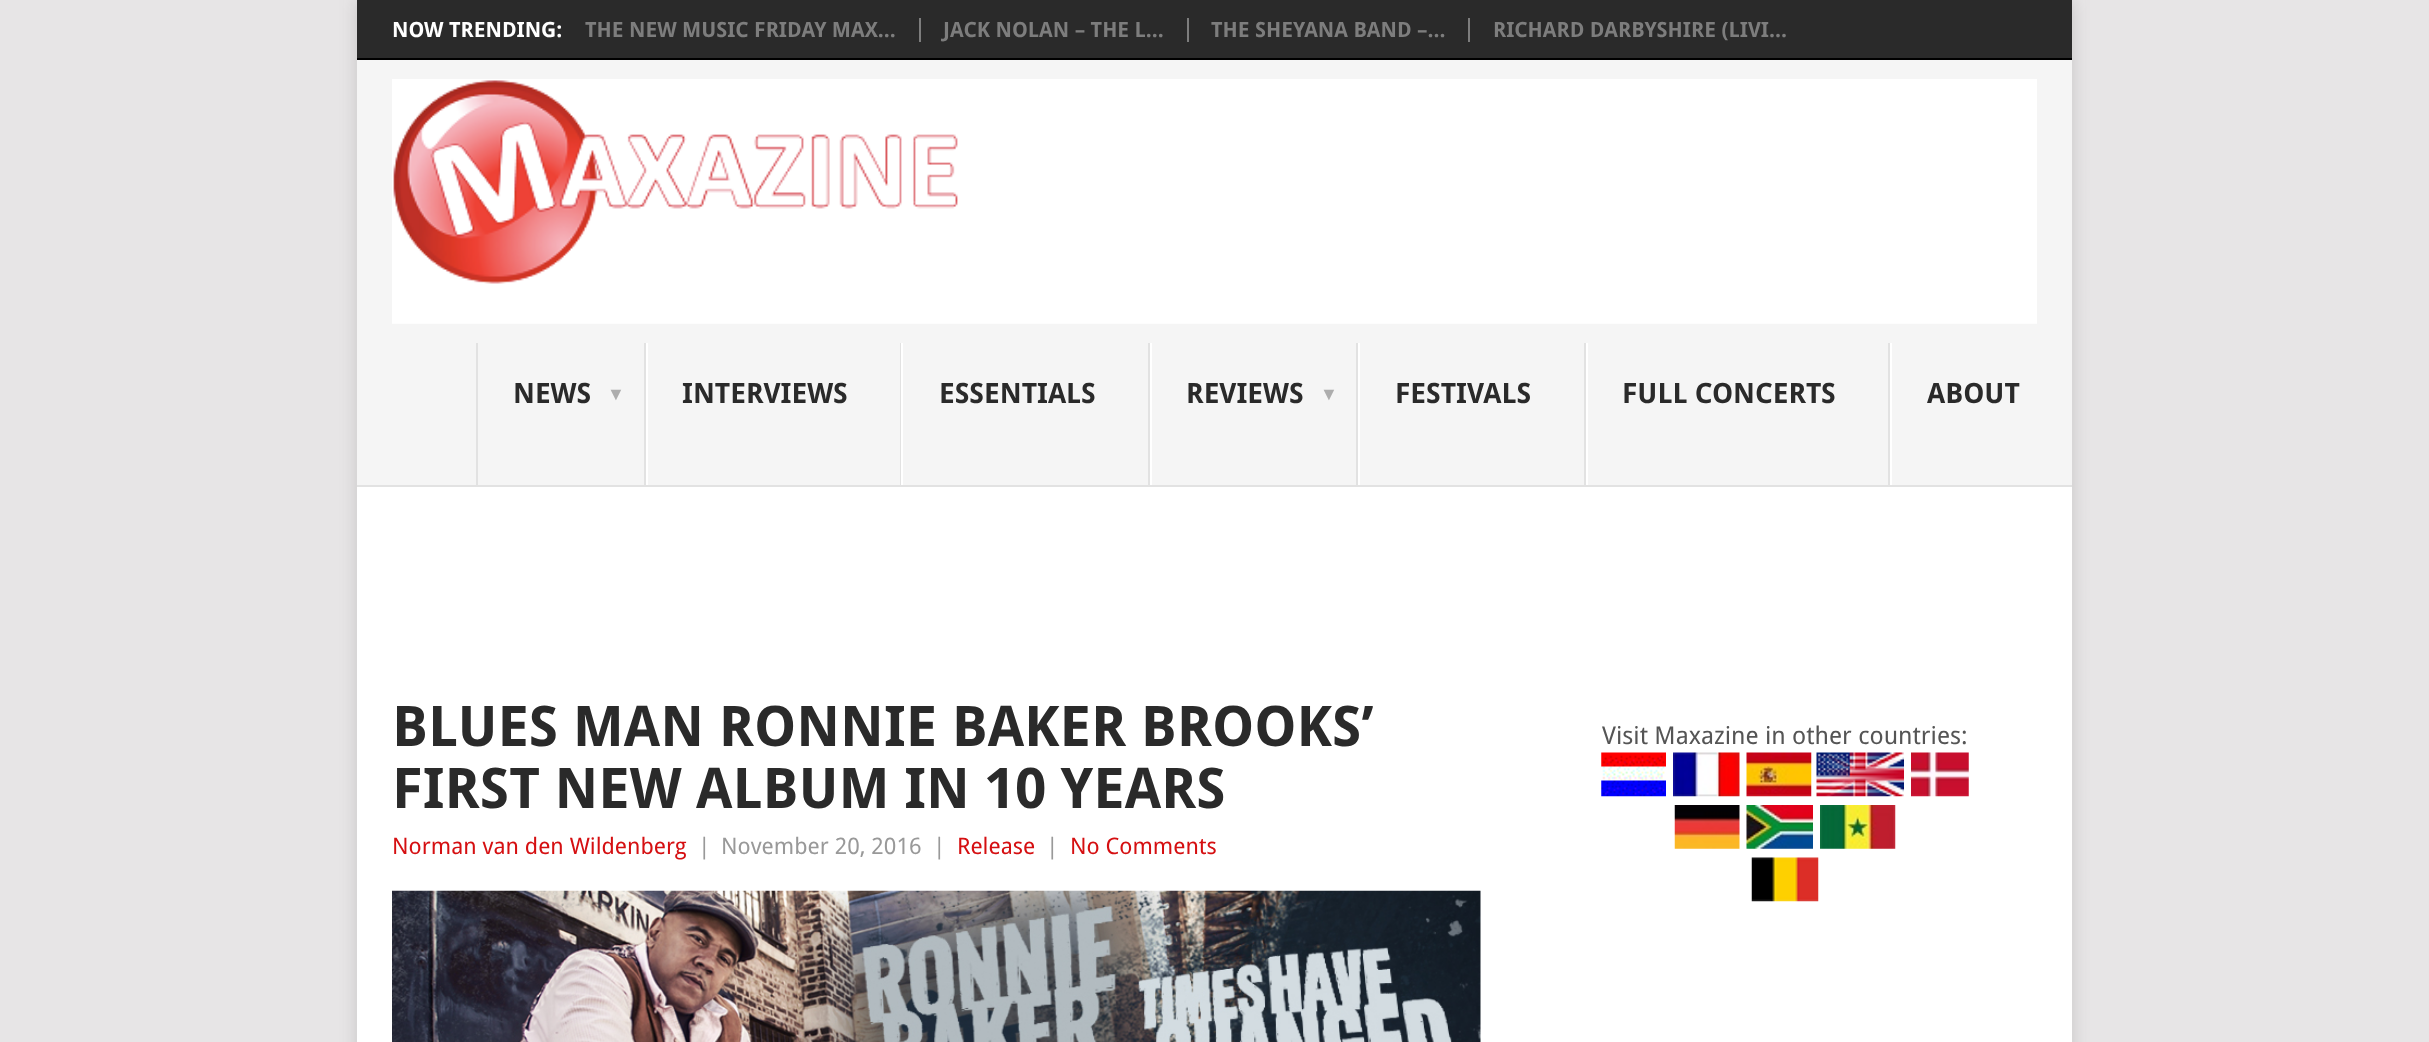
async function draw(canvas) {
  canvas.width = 2429;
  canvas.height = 1042;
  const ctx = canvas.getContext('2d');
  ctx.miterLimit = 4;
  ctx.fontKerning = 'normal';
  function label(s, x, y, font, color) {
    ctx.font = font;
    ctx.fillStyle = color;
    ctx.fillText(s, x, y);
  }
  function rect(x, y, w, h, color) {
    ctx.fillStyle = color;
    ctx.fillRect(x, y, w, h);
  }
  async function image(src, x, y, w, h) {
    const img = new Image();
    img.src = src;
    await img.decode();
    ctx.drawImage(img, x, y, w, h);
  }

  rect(0, 0, 2429, 1042, '#e7e5e6');
  ctx.fillStyle = '#3232322b';
  ctx.filter = 'blur(9px)';
  ctx.beginPath();
  ctx.rect(357, 0, 1715, 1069);
  ctx.fill();
  ctx.filter = 'none';
  rect(357, 487, 1715, 555, '#fff');
  rect(357, 0, 1715, 58, '#2a2a2a');
  rect(357, 58, 1715, 2, '#000');
  label('NOW TRENDING:', 392, 37, 'bold 21px Droid Sans', '#fff');
  rect(919, 18, 2, 24, '#7d7d7d');
  label('THE NEW MUSIC FRIDAY MAX...', 585, 37, 'bold 21px Droid Sans', '#7d7d7d');
  rect(1187, 18, 2, 24, '#7d7d7d');
  label('JACK NOLAN – THE L...', 943, 37, 'bold 21px Droid Sans', '#7d7d7d');
  rect(1468, 18, 2, 24, '#7d7d7d');
  label('THE SHEYANA BAND –...', 1211, 37, 'bold 21px Droid Sans', '#7d7d7d');
  label('RICHARD DARBYSHIRE (LIVI...', 1493, 37, 'bold 21px Droid Sans', '#7d7d7d');
  rect(357, 60, 1715, 425, '#f5f5f5');
  await image('assets/img1.png', 392, 79, 1645, 245);
  rect(644, 343, 2, 144, '#e2e2e2');
  rect(476, 343, 2, 144, '#e2e2e2');
  label('NEWS', 513, 403, 'bold 28px Droid Sans', '#2a2a2a');
  label('▼', 607, 400, 'bold 18px Liberation Sans', '#adadad');
  rect(900, 343, 1, 144, '#e2e2e2');
  rect(646, 343, 2, 144, '#fff');
  label('INTERVIEWS', 682, 403, 'bold 28px Droid Sans', '#2a2a2a');
  rect(1148, 343, 2, 144, '#e2e2e2');
  rect(901, 343, 2, 144, '#fff');
  label('ESSENTIALS', 939, 403, 'bold 28px Droid Sans', '#2a2a2a');
  rect(1356, 343, 2, 144, '#e2e2e2');
  rect(1150, 343, 2, 144, '#fff');
  label('REVIEWS', 1186, 403, 'bold 28px Droid Sans', '#2a2a2a');
  label('▼', 1320, 400, 'bold 18px Liberation Sans', '#adadad');
  rect(1584, 343, 2, 144, '#e2e2e2');
  rect(1358, 343, 2, 144, '#fff');
  label('FESTIVALS', 1395, 403, 'bold 28px Droid Sans', '#2a2a2a');
  rect(1888, 343, 2, 144, '#e2e2e2');
  rect(1586, 343, 2, 144, '#fff');
  label('FULL CONCERTS', 1622, 403, 'bold 28px Droid Sans', '#2a2a2a');
  rect(1890, 343, 2, 144, '#fff');
  label('ABOUT', 1927, 403, 'bold 28px Droid Sans', '#2a2a2a');
  rect(357, 485, 1715, 2, '#e2e2e2');
  label('BLUES MAN RONNIE BAKER BROOKS’', 392, 746, 'bold 56px Droid Sans', '#2a2a2a');
  label('FIRST NEW ALBUM IN 10 YEARS', 392, 808, 'bold 56px Droid Sans', '#2a2a2a');
  label('Norman van den Wildenberg', 392, 854, '22.75px Droid Sans', '#d50f11');
  label('|', 698, 854, '22.75px Droid Sans', '#999');
  label('November 20, 2016', 721, 854, '22.75px Droid Sans', '#999');
  label('|', 933, 854, '22.75px Droid Sans', '#999');
  label('Release', 957, 854, '22.75px Droid Sans', '#d50f11');
  label('|', 1046, 854, '22.75px Droid Sans', '#999');
  label('No Comments', 1070, 854, '22.75px Droid Sans', '#d50f11');
  await image('assets/img2.png', 392, 890, 1089, 152);
  label('Visit Maxazine in other countries:', 1602, 744, '24.5px Droid Sans', '#555');
  await image('assets/img3.png', 1601, 752, 65, 45);
  await image('assets/img4.png', 1673, 752, 67, 45);
  await image('assets/img5.png', 1746, 752, 66, 45);
  await image('assets/img6.png', 1816, 752, 88, 45);
  await image('assets/img7.png', 1911, 752, 58, 45);
  await image('assets/img8.png', 1674, 805, 66, 44);
  await image('assets/img9.png', 1746, 805, 67, 44);
  await image('assets/img10.png', 1820, 805, 76, 44);
  await image('assets/img11.png', 1751, 857, 68, 45);
}

draw(document.querySelector('canvas'));
